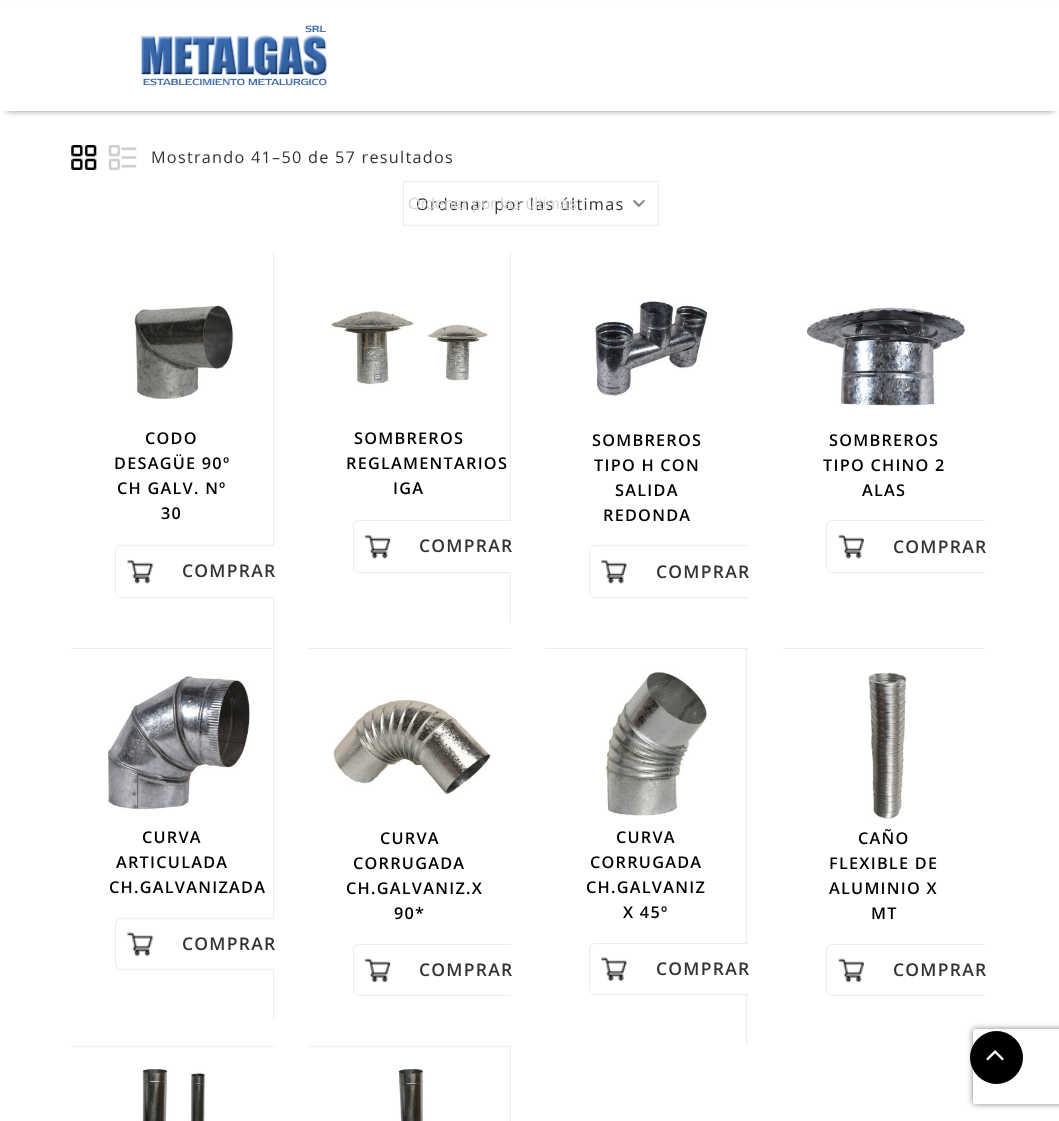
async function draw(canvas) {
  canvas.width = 1059;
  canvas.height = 1121;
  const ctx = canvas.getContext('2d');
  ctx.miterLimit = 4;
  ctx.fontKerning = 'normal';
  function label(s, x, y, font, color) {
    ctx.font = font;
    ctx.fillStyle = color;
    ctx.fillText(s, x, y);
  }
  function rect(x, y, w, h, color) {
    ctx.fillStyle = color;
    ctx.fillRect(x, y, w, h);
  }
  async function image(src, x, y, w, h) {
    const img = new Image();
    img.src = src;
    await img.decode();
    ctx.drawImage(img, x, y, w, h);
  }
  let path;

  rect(0, 0, 1059, 1121, '#fff');
  ctx.fillStyle = '#909090';
  ctx.filter = 'blur(3px)';
  ctx.beginPath();
  ctx.rect(6, 13, 1048, 98);
  ctx.fill();
  ctx.filter = 'none';
  rect(0, 7, 1059, 104, '#fff');
  await image('assets/img1.png', 140, 25, 188, 61);
  await image('assets/img2.png', 71, 145, 26, 25);
  await image('assets/img3.png', 108, 145, 29, 26);
  ctx.letterSpacing = '1.25px';
  label('Mostrando 41–50 de 57 resultados', 151, 163, '16.25px Open Sans', '#333');
  ctx.strokeStyle = '#ededed';
  ctx.strokeRect(403.5, 181.5, 255, 44);
  await image('assets/img4.png', 632, 200, 13, 8);
  ctx.beginPath();
  ctx.roundRect(403.5, 181.5, 255, 44, 2);
  ctx.stroke();
  label('Ordenar por las últimas', 416, 210, '16.25px Open Sans', '#333');
  ctx.letterSpacing = '0px';
  label('Ordenar por las últimas', 408, 209, '16.25px Liberation Sans', '#d7d7d7');
  rect(273, 251, 1, 397, '#ededed');
  await image('assets/img5.png', 132, 305, 102, 95);
  ctx.letterSpacing = '1.25px';
  label('CODO', 145, 444, '600 16.25px Open Sans', '#000');
  label('DESAGÜE 90º', 114, 469, '600 16.25px Open Sans', '#000');
  label('CH GALV. Nº', 117, 494, '600 16.25px Open Sans', '#000');
  label('30', 161, 519, '600 16.25px Open Sans', '#000');
  ctx.fillStyle = '#fff';
  ctx.beginPath();
  ctx.roundRect(115, 545, 159, 53, [6, 0, 0, 6]);
  ctx.fill();
  await image('assets/img6.png', 127, 559, 26, 25);
  ctx.save();
  ctx.beginPath();
  ctx.rect(71, 251, 203, 397);
  ctx.clip();
  ctx.beginPath();
  ctx.roundRect(115.5, 545.5, 214, 52, 5.5);
  ctx.stroke();
  ctx.restore();
  label('COMPRAR', 182, 577, '600 17.5px Open Sans', '#333');
  rect(510, 251, 1, 372, '#ededed');
  await image('assets/img7.png', 331, 311, 159, 75);
  label('SOMBREROS', 354, 444, '600 16.25px Open Sans', '#000');
  label('REGLAMENTARIOS', 346, 469, '600 16.25px Open Sans', '#000');
  label('IGA', 393, 494, '600 16.25px Open Sans', '#000');
  ctx.fillStyle = '#fff';
  ctx.beginPath();
  ctx.roundRect(353, 520, 158, 53, [6, 0, 0, 6]);
  ctx.fill();
  await image('assets/img8.png', 364, 534, 27, 25);
  ctx.save();
  ctx.beginPath();
  ctx.rect(309, 251, 202, 372);
  ctx.clip();
  ctx.beginPath();
  ctx.roundRect(353.5, 520.5, 214, 52, 5.5);
  ctx.stroke();
  ctx.restore();
  label('COMPRAR', 419, 552, '600 17.5px Open Sans', '#333');
  await image('assets/img9.png', 595, 301, 114, 95);
  label('SOMBREROS', 592, 446, '600 16.25px Open Sans', '#000');
  label('TIPO H CON', 594, 471, '600 16.25px Open Sans', '#000');
  label('SALIDA', 615, 496, '600 16.25px Open Sans', '#000');
  label('REDONDA', 603, 521, '600 16.25px Open Sans', '#000');
  await image('assets/img10.png', 601, 559, 26, 25);
  ctx.save();
  ctx.beginPath();
  ctx.rect(545, 251, 203, 397);
  ctx.clip();
  ctx.beginPath();
  ctx.roundRect(589.5, 545.5, 214, 52, 5.5);
  ctx.stroke();
  ctx.restore();
  label('COMPRAR', 656, 578, '600 17.5px Open Sans', '#333');
  await image('assets/img11.png', 806, 306, 160, 100);
  label('SOMBREROS', 829, 446, '600 16.25px Open Sans', '#000');
  label('TIPO CHINO 2', 823, 471, '600 16.25px Open Sans', '#000');
  label('ALAS', 862, 496, '600 16.25px Open Sans', '#000');
  await image('assets/img12.png', 838, 534, 26, 25);
  ctx.save();
  ctx.beginPath();
  ctx.rect(783, 251, 202, 372);
  ctx.clip();
  ctx.beginPath();
  ctx.roundRect(826.5, 520.5, 214, 52, 5.5);
  ctx.stroke();
  ctx.restore();
  label('COMPRAR', 893, 553, '600 17.5px Open Sans', '#333');
  rect(71, 648, 203, 1, '#ededed');
  rect(273, 648, 1, 372, '#ededed');
  await image('assets/img13.png', 107, 676, 145, 136);
  label('CURVA', 142, 843, '600 16.25px Open Sans', '#000');
  label('ARTICULADA', 116, 868, '600 16.25px Open Sans', '#000');
  label('CH.GALVANIZADA', 109, 893, '600 16.25px Open Sans', '#000');
  ctx.fillStyle = '#fff';
  ctx.beginPath();
  ctx.roundRect(115, 918, 159, 52, [6, 0, 0, 6]);
  ctx.fill();
  await image('assets/img14.png', 127, 932, 26, 25);
  ctx.save();
  ctx.beginPath();
  ctx.rect(71, 648, 203, 372);
  ctx.clip();
  ctx.beginPath();
  ctx.roundRect(115.5, 918.5, 214, 51, 5.5);
  ctx.stroke();
  ctx.restore();
  label('COMPRAR', 182, 950, '600 17.5px Open Sans', '#333');
  rect(309, 648, 202, 1, '#ededed');
  await image('assets/img15.png', 331, 699, 161, 95);
  label('CURVA', 380, 844, '600 16.25px Open Sans', '#000');
  label('CORRUGADA', 353, 869, '600 16.25px Open Sans', '#000');
  label('CH.GALVANIZ.X', 346, 894, '600 16.25px Open Sans', '#000');
  label('90*', 394, 919, '600 16.25px Open Sans', '#000');
  await image('assets/img16.png', 364, 958, 27, 25);
  ctx.save();
  ctx.beginPath();
  ctx.rect(309, 648, 202, 398);
  ctx.clip();
  ctx.beginPath();
  ctx.roundRect(353.5, 944.5, 214, 51, 5.5);
  ctx.stroke();
  ctx.restore();
  label('COMPRAR', 419, 976, '600 17.5px Open Sans', '#333');
  rect(545, 648, 203, 1, '#ededed');
  rect(746, 648, 1, 397, '#ededed');
  await image('assets/img17.png', 605, 671, 102, 145);
  label('CURVA', 616, 843, '600 16.25px Open Sans', '#000');
  label('CORRUGADA', 590, 868, '600 16.25px Open Sans', '#000');
  label('CH.GALVANIZ', 586, 893, '600 16.25px Open Sans', '#000');
  label('X 45º', 623, 918, '600 16.25px Open Sans', '#000');
  ctx.fillStyle = '#fff';
  ctx.beginPath();
  ctx.roundRect(589, 943, 159, 52, [6, 0, 0, 6]);
  ctx.fill();
  await image('assets/img18.png', 601, 957, 26, 25);
  ctx.save();
  ctx.beginPath();
  ctx.rect(545, 648, 203, 397);
  ctx.clip();
  ctx.beginPath();
  ctx.roundRect(589.5, 943.5, 214, 51, 5.5);
  ctx.stroke();
  ctx.restore();
  label('COMPRAR', 656, 975, '600 17.5px Open Sans', '#333');
  rect(783, 648, 202, 1, '#ededed');
  await image('assets/img19.png', 867, 672, 41, 147);
  label('CAÑO', 858, 844, '600 16.25px Open Sans', '#000');
  label('FLEXIBLE DE', 829, 869, '600 16.25px Open Sans', '#000');
  label('ALUMINIO X', 829, 894, '600 16.25px Open Sans', '#000');
  label('MT', 871, 919, '600 16.25px Open Sans', '#000');
  await image('assets/img20.png', 838, 958, 26, 25);
  ctx.save();
  ctx.beginPath();
  ctx.rect(783, 648, 202, 398);
  ctx.clip();
  ctx.beginPath();
  ctx.roundRect(826.5, 944.5, 214, 51, 5.5);
  ctx.stroke();
  ctx.restore();
  label('COMPRAR', 893, 976, '600 17.5px Open Sans', '#333');
  rect(71, 1046, 203, 1, '#ededed');
  await image('assets/img21.png', 141, 1067, 64, 54);
  rect(309, 1046, 202, 1, '#ededed');
  rect(510, 1046, 1, 75, '#ededed');
  await image('assets/img22.png', 396, 1065, 29, 56);
  ctx.save();
  path = new Path2D('M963 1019H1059V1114H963ZM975.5 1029H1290.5C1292 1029 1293 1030 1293 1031.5V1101.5C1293 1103 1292 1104 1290.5 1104H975.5C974 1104 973 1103 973 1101.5V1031.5C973 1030 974 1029 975.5 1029Z');
  ctx.clip(path, 'evenodd');
  ctx.fillStyle = '#808080';
  ctx.filter = 'blur(3px)';
  ctx.beginPath();
  ctx.roundRect(973, 1029, 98, 75, 2.5);
  ctx.fill();
  ctx.filter = 'none';
  ctx.restore();
  ctx.fillStyle = '#000';
  ctx.beginPath();
  ctx.arc(996.5, 1057.5, 26, 0, 2 * Math.PI);
  ctx.fill();
  ctx.strokeStyle = '#000';
  ctx.stroke();
  await image('assets/img23.png', 986, 1050, 18, 11);
}

draw(document.querySelector('canvas'));
